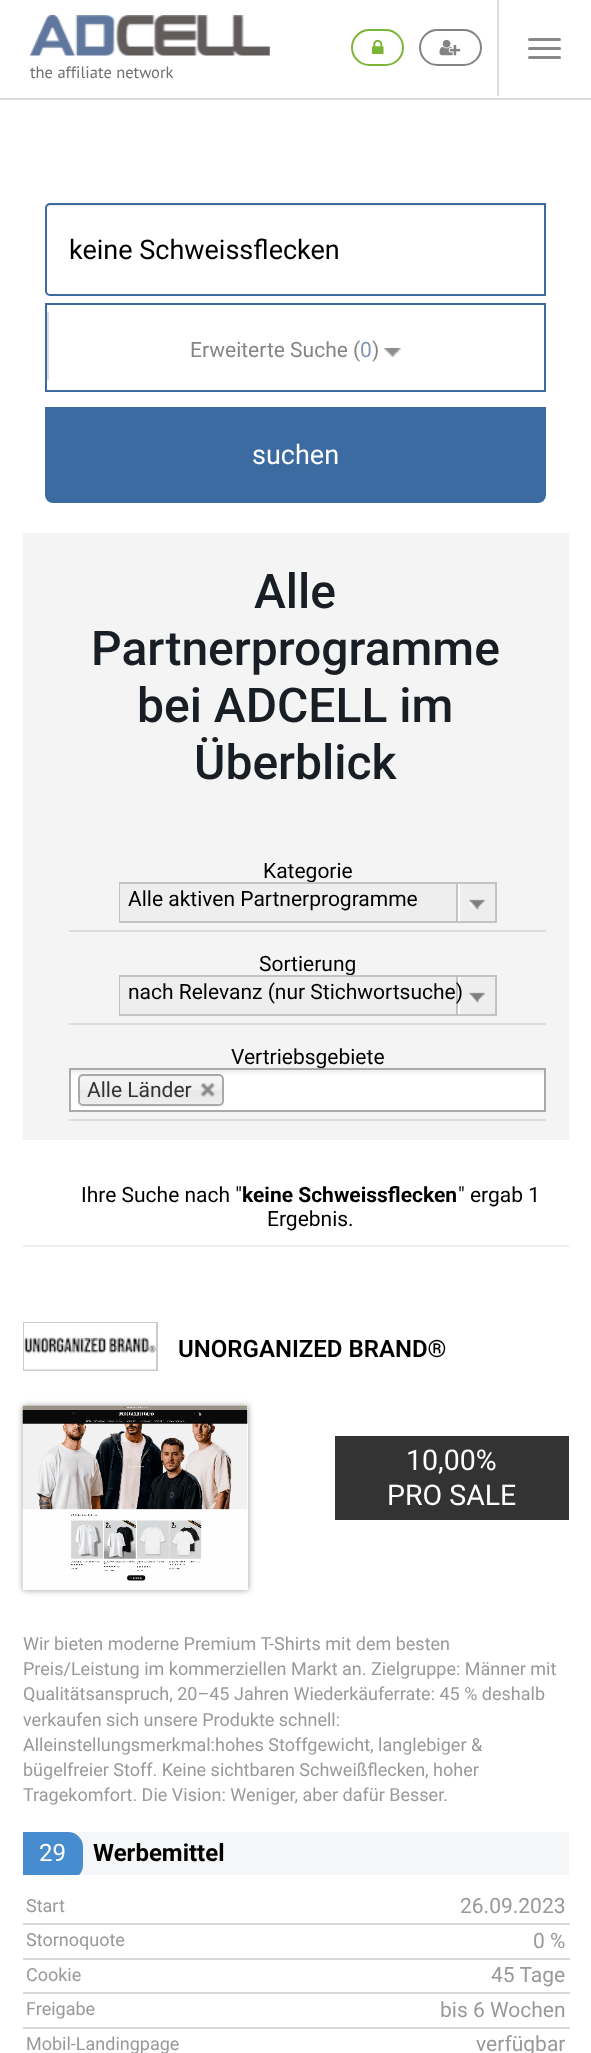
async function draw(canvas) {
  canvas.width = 591;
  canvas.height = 2053;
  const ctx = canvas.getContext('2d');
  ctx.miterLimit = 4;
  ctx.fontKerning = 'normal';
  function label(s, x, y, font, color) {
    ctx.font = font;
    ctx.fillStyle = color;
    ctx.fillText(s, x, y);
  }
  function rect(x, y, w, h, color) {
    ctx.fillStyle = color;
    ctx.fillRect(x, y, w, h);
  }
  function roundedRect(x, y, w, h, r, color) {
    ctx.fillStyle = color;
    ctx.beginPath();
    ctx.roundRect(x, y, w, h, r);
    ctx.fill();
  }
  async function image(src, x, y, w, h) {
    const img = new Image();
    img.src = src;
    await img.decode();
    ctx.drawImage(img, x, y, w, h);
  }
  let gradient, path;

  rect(0, 0, 591, 2053, '#fff');
  rect(0, 98, 591, 2, '#ddd');
  await image('assets/img1.png', 30, 15, 240, 41);
  label('the affiliate network', 30, 78, '16.5px PT Sans', '#706f73');
  ctx.beginPath();
  ctx.roundRect(352, 30, 51, 35, 17.5);
  ctx.strokeStyle = '#7ab535';
  ctx.lineWidth = 2;
  ctx.stroke();
  await image('assets/img2.png', 372, 39, 12, 15);
  ctx.beginPath();
  ctx.roundRect(420, 30, 61, 35, 17.5);
  ctx.strokeStyle = '#838383';
  ctx.stroke();
  await image('assets/img3.png', 439, 39, 22, 17);
  rect(497, 0, 2, 96, '#ddd');
  roundedRect(528, 38, 33, 3, 1.5, '#888');
  roundedRect(528, 47, 33, 3, 1.5, '#888');
  roundedRect(528, 56, 33, 3, 1.5, '#888');
  ctx.fillStyle = '#ececec';
  path = new Path2D('M50 206H544V294H545V204H50C48 204 47 205 47 207Z');
  ctx.fill(path);
  ctx.beginPath();
  ctx.roundRect(46, 204, 499, 91, [4, 0, 0, 4]);
  ctx.strokeStyle = '#3b6ba0';
  ctx.stroke();
  label('keine Schweissflecken', 69, 259, '27px Roboto', '#000');
  ctx.strokeRect(46, 304, 499, 87);
  rect(47, 312, 2, 68, '#ddd');
  label('Erweiterte Suche (', 190, 357, '21px Roboto', '#858585');
  label('0', 360, 357, '21px Roboto', '#8095b0');
  label(')', 372, 357, '21px Roboto', '#858585');
  await image('assets/img4.png', 384, 348, 17, 9);
  ctx.fillStyle = '#3b6ba0';
  ctx.beginPath();
  ctx.roundRect(46, 408, 499, 94, [0, 0, 7, 7]);
  ctx.fill();
  ctx.stroke();
  label('suchen', 252, 464, '27px Roboto', '#fff');
  rect(23, 533, 546, 607, '#f4f4f4');
  label('Alle', 254, 608, '500 48px Roboto', '#191e25');
  label('Partnerprogramme', 91, 665, '500 48px Roboto', '#191e25');
  label('bei ADCELL im', 137, 722, '500 48px Roboto', '#191e25');
  label('Überblick', 194, 779, '500 48px Roboto', '#191e25');
  rect(69, 930, 477, 2, '#ddd');
  label('Kategorie', 263, 878, '21px Roboto', '#000');
  ctx.strokeStyle = '#c3c3c3';
  ctx.strokeRect(120, 883, 376, 39);
  rect(120, 884, 375, 37, '#eee');
  label('Alle aktiven Partnerprogramme', 128, 906, '21px Roboto', '#000');
  rect(458, 884, 2, 37, '#fff');
  rect(456, 884, 2, 37, '#c3c3c3');
  await image('assets/img5.png', 469, 899, 16, 11);
  rect(69, 1023, 477, 2, '#ddd');
  label('Sortierung', 259, 971, '21px Roboto', '#000');
  ctx.strokeRect(120, 976, 376, 39);
  rect(120, 977, 375, 37, '#eee');
  rect(458, 977, 2, 37, '#fff');
  rect(456, 977, 2, 37, '#c3c3c3');
  label('nach Relevanz (nur Stichwortsuche)', 128, 999, '21px Roboto', '#000');
  await image('assets/img5.png', 469, 992, 16, 11);
  rect(69, 1119, 477, 2, '#ddd');
  label('Vertriebsgebiete', 231, 1064, '21px Roboto', '#000');
  gradient = ctx.createLinearGradient(308, 1070, 308, 1110);
  gradient.addColorStop(0.01, '#eee');
  gradient.addColorStop(0.15, '#fff');
  ctx.fillStyle = gradient;
  ctx.fillRect(71, 1070, 473, 40);
  ctx.strokeStyle = '#aaa';
  ctx.strokeRect(70, 1069, 475, 42);
  ctx.fillStyle = '#f2f2f2';
  path = new Path2D('M78 1101V1102C78 1105 80 1107 83 1107H219C222 1107 224 1105 224 1102V1081V1079V1101C224 1103 221 1106 219 1106H82C80 1106 78 1103 78 1101Z');
  ctx.fill(path);
  gradient = ctx.createLinearGradient(151, 1076, 151, 1104);
  gradient.addColorStop(0.2, '#f4f4f4');
  gradient.addColorStop(0.5, '#f0f0f0');
  gradient.addColorStop(0.52, '#e8e8e8');
  gradient.addColorStop(1, '#eee');
  ctx.fillStyle = gradient;
  ctx.beginPath();
  ctx.roundRect(80, 1076, 142, 28, 3);
  ctx.fill();
  ctx.beginPath();
  ctx.roundRect(79, 1075, 144, 30, 4);
  ctx.stroke();
  label('Alle Länder', 87, 1097, '21px Roboto', '#333');
  await image('assets/img6.png', 200, 1083, 15, 14);
  rect(23, 1245, 546, 2, '#eee');
  label('Ihre Suche nach "', 81, 1202, '21px Roboto', '#000');
  label('keine Schweissflecken', 242, 1202, 'bold 21px Roboto', '#000');
  label('" ergab 1', 458, 1202, '21px Roboto', '#000');
  label('Ergebnis.', 267, 1226, '21px Roboto', '#000');
  ctx.strokeStyle = '#ccc';
  ctx.strokeRect(24, 1323, 133, 47);
  await image('assets/img7.png', 24, 1323, 132, 47);
  label('UNORGANIZED BRAND®', 178, 1357, '600 24px Roboto', '#000');
  ctx.save();
  path = new Path2D('M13 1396H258V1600H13ZM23 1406H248V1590H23Z');
  ctx.clip(path, 'evenodd');
  ctx.fillStyle = '#00000066';
  ctx.filter = 'blur(3px)';
  ctx.beginPath();
  ctx.rect(23, 1406, 225, 184);
  ctx.fill();
  ctx.filter = 'none';
  ctx.restore();
  await image('assets/img8.png', 22, 1405, 226, 180);
  rect(335, 1436, 234, 84, '#333');
  label('10,00%', 406, 1470, '28.5px Roboto', '#fff');
  label('PRO SALE', 387, 1505, '28.5px Roboto', '#fff');
  label('Wir bieten moderne Premium T-Shirts mit dem besten', 23, 1650, '18px Roboto', '#999');
  label('Preis/Leistung im kommerziellen Markt an. Zielgruppe: Männer mit', 23, 1675, '18px Roboto', '#999');
  label('Qualitätsanspruch, 20–45 Jahren Wiederkäuferrate: 45 % deshalb', 23, 1700, '18px Roboto', '#999');
  label('verkaufen sich unsere Produkte schnell:', 23, 1726, '18px Roboto', '#999');
  label('Alleinstellungsmerkmal:hohes Stoffgewicht, langlebiger &', 23, 1751, '18px Roboto', '#999');
  label('bügelfreier Stoff. Keine sichtbaren Schweißflecken, hoher', 23, 1776, '18px Roboto', '#999');
  label('Tragekomfort. Die Vision: Weniger, aber dafür Besser.', 23, 1801, '18px Roboto', '#999');
  rect(68, 1832, 501, 43, '#f5f6f7');
  ctx.save();
  ctx.beginPath();
  ctx.rect(23, 1832, 546, 43);
  ctx.clip();
  ctx.fillStyle = '#478cce';
  ctx.beginPath();
  ctx.roundRect(23, 1832, 60, 48, [0, 15, 15, 0]);
  ctx.fill();
  ctx.restore();
  label('29', 39, 1861, '24px Roboto', '#fff');
  label('Werbemittel', 93, 1861, 'bold 24px Roboto', '#000');
  label('Start', 26, 1912, '18px Roboto', '#999');
  label('26.09.2023', 460, 1913, '21px Roboto', '#999');
  label('Stornoquote', 26, 1946, '18px Roboto', '#999');
  rect(23, 1923, 547, 2, '#d8d8d8');
  label('0 %', 533, 1948, '21px Roboto', '#999');
  label('Cookie', 26, 1981, '18px Roboto', '#999');
  rect(23, 1958, 547, 2, '#d8d8d8');
  label('45 Tage', 491, 1982, '21px Roboto', '#999');
  label('Freigabe', 26, 2015, '18px Roboto', '#999');
  rect(23, 1992, 547, 2, '#d8d8d8');
  label('bis 6 Wochen', 440, 2017, '21px Roboto', '#999');
  label('Mobil-Landingpage', 26, 2050, '18px Roboto', '#999');
  rect(23, 2027, 547, 2, '#d8d8d8');
  label('verfügbar', 476, 2051, '21px Roboto', '#999');
}

draw(document.querySelector('canvas'));
